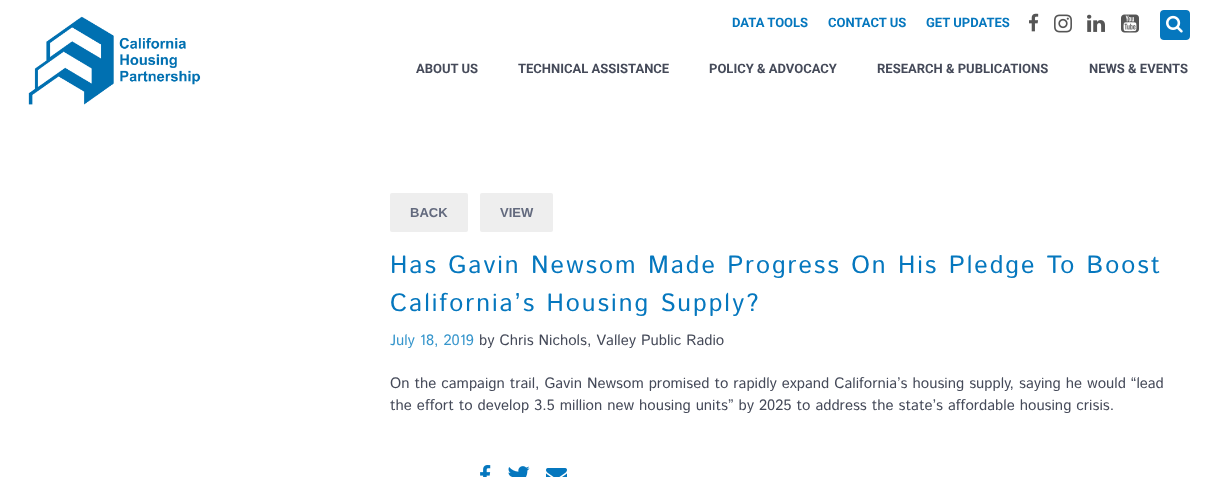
async function draw(canvas) {
  canvas.width = 1209;
  canvas.height = 477;
  const ctx = canvas.getContext('2d');
  ctx.miterLimit = 4;
  ctx.fontKerning = 'normal';
  function label(s, x, y, font, color) {
    ctx.font = font;
    ctx.fillStyle = color;
    ctx.fillText(s, x, y);
  }
  function rect(x, y, w, h, color) {
    ctx.fillStyle = color;
    ctx.fillRect(x, y, w, h);
  }
  function roundedRect(x, y, w, h, r, color) {
    ctx.fillStyle = color;
    ctx.beginPath();
    ctx.roundRect(x, y, w, h, r);
    ctx.fill();
  }
  async function image(src, x, y, w, h) {
    const img = new Image();
    img.src = src;
    await img.decode();
    ctx.drawImage(img, x, y, w, h);
  }

  rect(0, 0, 1209, 477, '#fff');
  await image('assets/img1.png', 28, 16, 173, 89);
  label('DATA TOOLS', 732, 27, 'bold 13px Roboto', '#0577be');
  label('CONTACT US', 828, 27, 'bold 13px Roboto', '#0577be');
  label('GET UPDATES', 926, 27, 'bold 13px Roboto', '#0577be');
  await image('assets/img2.png', 1029, 13, 10, 19);
  await image('assets/img3.png', 1054, 14, 18, 19);
  await image('assets/img4.png', 1087, 14, 18, 18);
  await image('assets/img5.png', 1121, 14, 18, 19);
  roundedRect(1160, 10, 30, 30, 3, '#eee');
  ctx.save();
  ctx.beginPath();
  ctx.roundRect(1160, 10, 30, 30, 3);
  ctx.clip();
  roundedRect(1160, 10, 30, 30, 4, '#0577be');
  ctx.restore();
  await image('assets/img6.png', 1166, 15, 17, 18);
  label('ABOUT US', 416, 73, 'bold 13px Roboto', '#454a59');
  label('TECHNICAL ASSISTANCE', 518, 73, 'bold 13px Roboto', '#454a59');
  label('POLICY & ADVOCACY', 709, 73, 'bold 13px Roboto', '#454a59');
  label('RESEARCH & PUBLICATIONS', 877, 73, 'bold 13px Roboto', '#454a59');
  label('NEWS & EVENTS', 1089, 73, 'bold 13px Roboto', '#454a59');
  roundedRect(390, 193, 78, 39, 2, '#eee');
  label('BACK', 410, 217, 'bold 13px Liberation Sans', '#636a7e');
  roundedRect(480, 193, 73, 39, 2, '#eee');
  label('VIEW', 500, 217, 'bold 13px Liberation Sans', '#636a7e');
  ctx.letterSpacing = '2px';
  label('Has Gavin Newsom Made Progress On His Pledge To Boost', 390, 273, '25px Istok Web', '#0577be');
  label('California’s Housing Supply?', 390, 311, '25px Istok Web', '#0577be');
  ctx.letterSpacing = '0px';
  label('July 18, 2019', 390, 345, '15px Istok Web', '#3796cc');
  label('by Chris Nichols, Valley Public Radio', 479, 345, '15px Istok Web', '#454a59');
  label('On the campaign trail, Gavin Newsom promised to rapidly expand California’s housing supply, saying he would “lead', 390, 388, '15px Istok Web', '#454a59');
  label('the effort to develop 3.5 million new housing units” by 2025 to address the state’s affordable housing crisis.', 390, 410, '15px Istok Web', '#454a59');
  await image('assets/img7.png', 480, 465, 11, 12);
  await image('assets/img8.png', 508, 466, 22, 11);
  await image('assets/img9.png', 546, 468, 21, 9);
}

draw(document.querySelector('canvas'));
